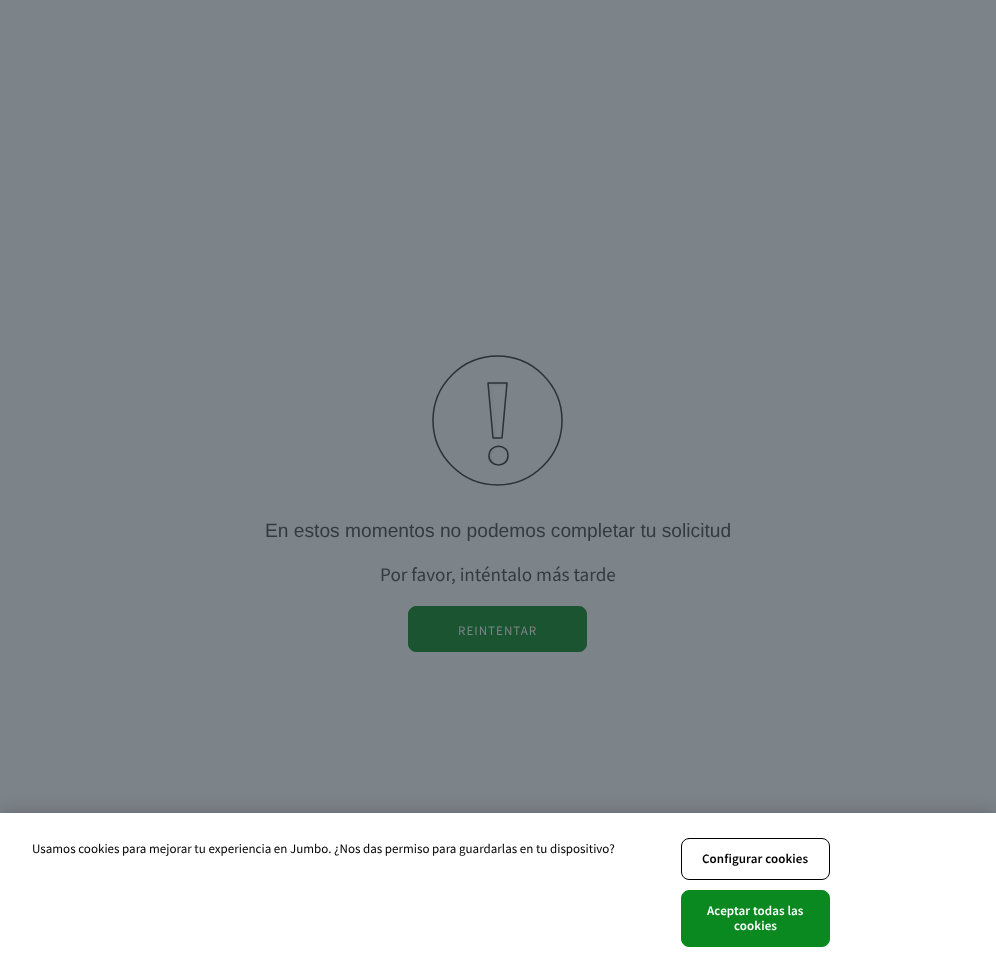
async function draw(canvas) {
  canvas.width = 996;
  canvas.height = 967;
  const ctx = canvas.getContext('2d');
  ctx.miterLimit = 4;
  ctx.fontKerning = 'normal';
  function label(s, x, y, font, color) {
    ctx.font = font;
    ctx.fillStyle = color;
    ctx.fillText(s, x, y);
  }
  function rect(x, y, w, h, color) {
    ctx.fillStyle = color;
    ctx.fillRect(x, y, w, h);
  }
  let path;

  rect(0, 0, 996, 967, '#7c8389');
  path = new Path2D('M562 420.5C562 456 533 485 497.5 485C462 485 433 456 433 420.5C433 385 462 356 497.5 356C533 356 562 385 562 420.5Z');
  ctx.strokeStyle = '#2a3137';
  ctx.lineWidth = 1.5;
  ctx.lineCap = 'round';
  ctx.lineJoin = 'round';
  ctx.stroke(path);
  path = new Path2D('M492.5 462C487 453.5 498 442.5 506 449M508 385H491L496 438');
  ctx.strokeStyle = '#787f85';
  ctx.stroke(path);
  path = new Path2D('M508 455.5C508 468.5 488.5 467.5 489 455.5C489.5 443 508 443 508 455.5ZM507 383H488L493 438H502Z');
  ctx.strokeStyle = '#2a3137';
  ctx.stroke(path);
  label('En estos momentos no podemos completar tu solicitud', 265, 537, '19.2px Liberation Sans', '#333a40');
  label('Por favor, inténtalo más tarde', 380, 581, '19.2px Source Sans Pro', '#333a40');
  ctx.fillStyle = '#1a5430';
  ctx.beginPath();
  ctx.roundRect(408.5, 606.5, 178, 45, 7.5);
  ctx.fill();
  ctx.strokeStyle = '#1a5430';
  ctx.lineWidth = 1;
  ctx.lineJoin = 'miter';
  ctx.stroke();
  ctx.letterSpacing = '1px';
  label('REINTENTAR', 458, 635, '13px Source Sans Pro', '#7c8389');
  ctx.fillStyle = '#00000033';
  ctx.filter = 'blur(9px)';
  ctx.beginPath();
  ctx.rect(0, 813, 996, 154);
  ctx.fill();
  ctx.filter = 'none';
  rect(0, 813, 996, 154, '#fff');
  ctx.letterSpacing = '0px';
  label('Usamos cookies para mejorar tu experiencia en Jumbo. ¿Nos das permiso para guardarlas en tu dispositivo?', 32, 853, '13px Source Sans Pro', '#000');
  ctx.beginPath();
  ctx.roundRect(681.5, 838.5, 148, 41, 7.5);
  ctx.strokeStyle = '#000';
  ctx.stroke();
  ctx.letterSpacing = '0.1px';
  label('Configurar cookies', 702, 863, '600 13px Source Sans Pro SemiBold', '#000');
  ctx.fillStyle = '#0a8920';
  ctx.beginPath();
  ctx.roundRect(681.5, 890.5, 148, 56, 7.5);
  ctx.fill();
  ctx.strokeStyle = '#0a8920';
  ctx.stroke();
  label('Aceptar todas las', 707, 915, '600 13px Source Sans Pro SemiBold', '#fff');
  label('cookies', 734, 930, '600 13px Source Sans Pro SemiBold', '#fff');
}

draw(document.querySelector('canvas'));
